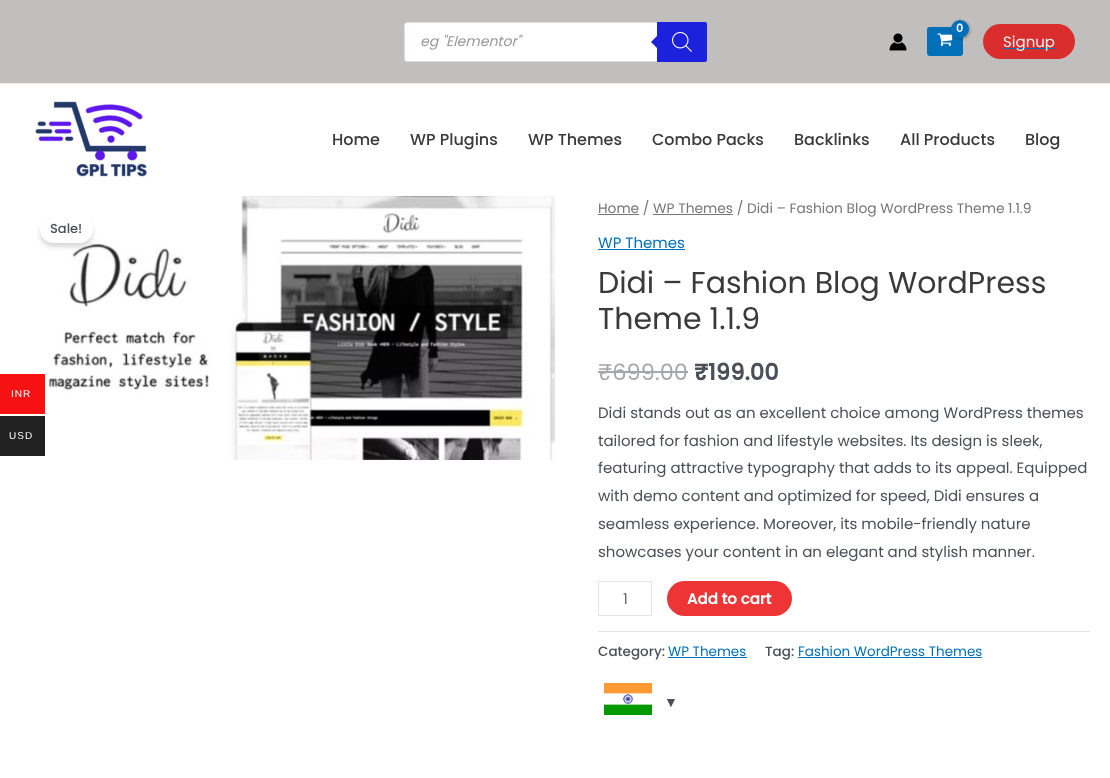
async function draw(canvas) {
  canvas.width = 1110;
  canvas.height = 778;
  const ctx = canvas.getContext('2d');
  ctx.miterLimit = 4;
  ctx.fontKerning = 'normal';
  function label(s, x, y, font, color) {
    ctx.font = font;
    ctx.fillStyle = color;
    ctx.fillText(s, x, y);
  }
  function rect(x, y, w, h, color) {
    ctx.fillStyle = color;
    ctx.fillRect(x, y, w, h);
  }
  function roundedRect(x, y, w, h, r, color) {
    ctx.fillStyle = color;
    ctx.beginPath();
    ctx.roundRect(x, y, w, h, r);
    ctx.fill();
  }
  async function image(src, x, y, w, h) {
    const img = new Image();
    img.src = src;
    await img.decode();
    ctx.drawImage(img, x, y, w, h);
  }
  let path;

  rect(0, 0, 1110, 778, '#fff');
  rect(0, 374, 45, 40, '#f61212');
  ctx.letterSpacing = '1px';
  label('INR', 11, 397, '10px Liberation Sans', '#fff');
  rect(0, 416, 45, 40, '#212121');
  label('USD', 9, 439, '10px Liberation Sans', '#fff');
  rect(0, 0, 1110, 83, '#c1bebe');
  rect(0, 83, 1110, 1, '#eaeaea');
  ctx.fillStyle = '#fff';
  ctx.beginPath();
  ctx.roundRect(404.5, 22.5, 302, 39, 2.5);
  ctx.fill();
  ctx.strokeStyle = '#ddd';
  ctx.stroke();
  ctx.letterSpacing = '0px';
  label('eg "Elementor"', 420, 46, 'italic 14px Poppins', '#999');
  ctx.fillStyle = '#1c22db';
  ctx.beginPath();
  ctx.roundRect(657, 22, 50, 40, [0, 2, 2, 0]);
  ctx.fill();
  path = new Path2D('M659 34V50L651 42Z');
  ctx.fill(path);
  await image('assets/img1.png', 672, 32, 20, 20);
  roundedRect(927, 27, 36, 29, 3, '#0170b9');
  await image('assets/img2.png', 937, 33, 16, 13);
  ctx.fillStyle = '#0000004d';
  ctx.filter = 'blur(1.5px)';
  ctx.beginPath();
  ctx.roundRect(952, 21, 18, 18, 9);
  ctx.fill();
  ctx.filter = 'none';
  ctx.fillStyle = '#0170b9';
  ctx.beginPath();
  ctx.arc(960, 29, 9, 0, 2 * Math.PI);
  ctx.fill();
  label('0', 956, 32, 'bold 11px Poppins', '#fff');
  await image('assets/img3.png', 889, 33, 18, 18);
  roundedRect(983, 24, 92, 35, 17.5, '#da2d2d');
  rect(1003, 48, 52, 1, '#0170b9');
  label('Signup', 1003, 47, '15px Poppins', '#f5f5f5');
  await image('assets/img4.png', 35, 101, 112, 76);
  label('Home', 332, 145, '500 16px Poppins', '#3a3a3a');
  label('WP Plugins', 410, 145, '500 16px Poppins', '#3a3a3a');
  label('WP Themes', 528, 145, '500 16px Poppins', '#3a3a3a');
  label('Combo Packs', 652, 145, '500 16px Poppins', '#3a3a3a');
  label('Backlinks', 794, 145, '500 16px Poppins', '#3a3a3a');
  label('All Products', 900, 145, '500 16px Poppins', '#3a3a3a');
  label('Blog', 1025, 145, '500 16px Poppins', '#3a3a3a');
  await image('assets/img5.png', 48, 196, 507, 264);
  rect(598, 214, 41, 1, '#777');
  label('Home / WP Themes / Didi – Fashion Blog WordPress Theme 1.1.9', 598, 213, '13.8px Poppins', '#777');
  rect(653, 214, 80, 1, '#777');
  label('WP Themes', 598, 248, '15px Poppins', '#0170b9');
  rect(598, 249, 87, 1, '#0170b9');
  label('Didi – Fashion Blog WordPress', 598, 293, '30px Poppins', '#3a3a3a');
  label('Theme 1.1.9', 598, 329, '30px Poppins', '#3a3a3a');
  label('₹699.00', 598, 380, '22.5px Poppins', '#a5a7ac');
  rect(598, 371, 90, 2, '#a5a7ac');
  label('₹199.00', 694, 380, 'bold 22.5px Poppins', '#4b4f58');
  label('Didi stands out as an excellent choice among WordPress themes', 598, 418, '15px Poppins', '#4b4f58');
  label('tailored for fashion and lifestyle websites. Its design is sleek,', 598, 446, '15px Poppins', '#4b4f58');
  label('featuring attractive typography that adds to its appeal. Equipped', 598, 473, '15px Poppins', '#4b4f58');
  label('with demo content and optimized for speed, Didi ensures a', 598, 501, '15px Poppins', '#4b4f58');
  label('seamless experience. Moreover, its mobile-friendly nature', 598, 529, '15px Poppins', '#4b4f58');
  label('showcases your content in an elegant and stylish manner.', 598, 557, '15px Poppins', '#4b4f58');
  ctx.strokeStyle = '#e5e5e5';
  ctx.strokeRect(598.5, 581.5, 53, 34);
  label('1', 623, 604, '15px Poppins', '#666');
  roundedRect(667, 581, 125, 35, 17.5, '#ed3535');
  label('Add to cart', 687, 604, 'bold 15px Poppins', '#fff');
  rect(598, 631, 492, 1, '#e5e5e5');
  label('Category:', 598, 656, '500 13.5px Poppins', '#4b4f58');
  label('WP Themes', 668, 656, '13.5px Poppins', '#0170b9');
  rect(668, 657, 79, 1, '#0170b9');
  label('Tag:', 765, 656, '500 13.5px Poppins', '#4b4f58');
  label('Fashion WordPress Themes', 798, 656, '13.5px Poppins', '#0170b9');
  rect(798, 657, 184, 1, '#0170b9');
  await image('assets/img6.png', 604, 683, 48, 32);
  label('▼', 664, 707, '14px Liberation Sans', '#4b4f58');
  ctx.fillStyle = '#00000026';
  ctx.filter = 'blur(2px)';
  ctx.beginPath();
  ctx.roundRect(40, 220, 53, 27, 13.5);
  ctx.fill();
  ctx.filter = 'none';
  roundedRect(40, 216, 53, 27, 13.5, '#fff');
  label('Sale!', 50, 233, '500 13px Poppins', '#4b4f58');
}

draw(document.querySelector('canvas'));
